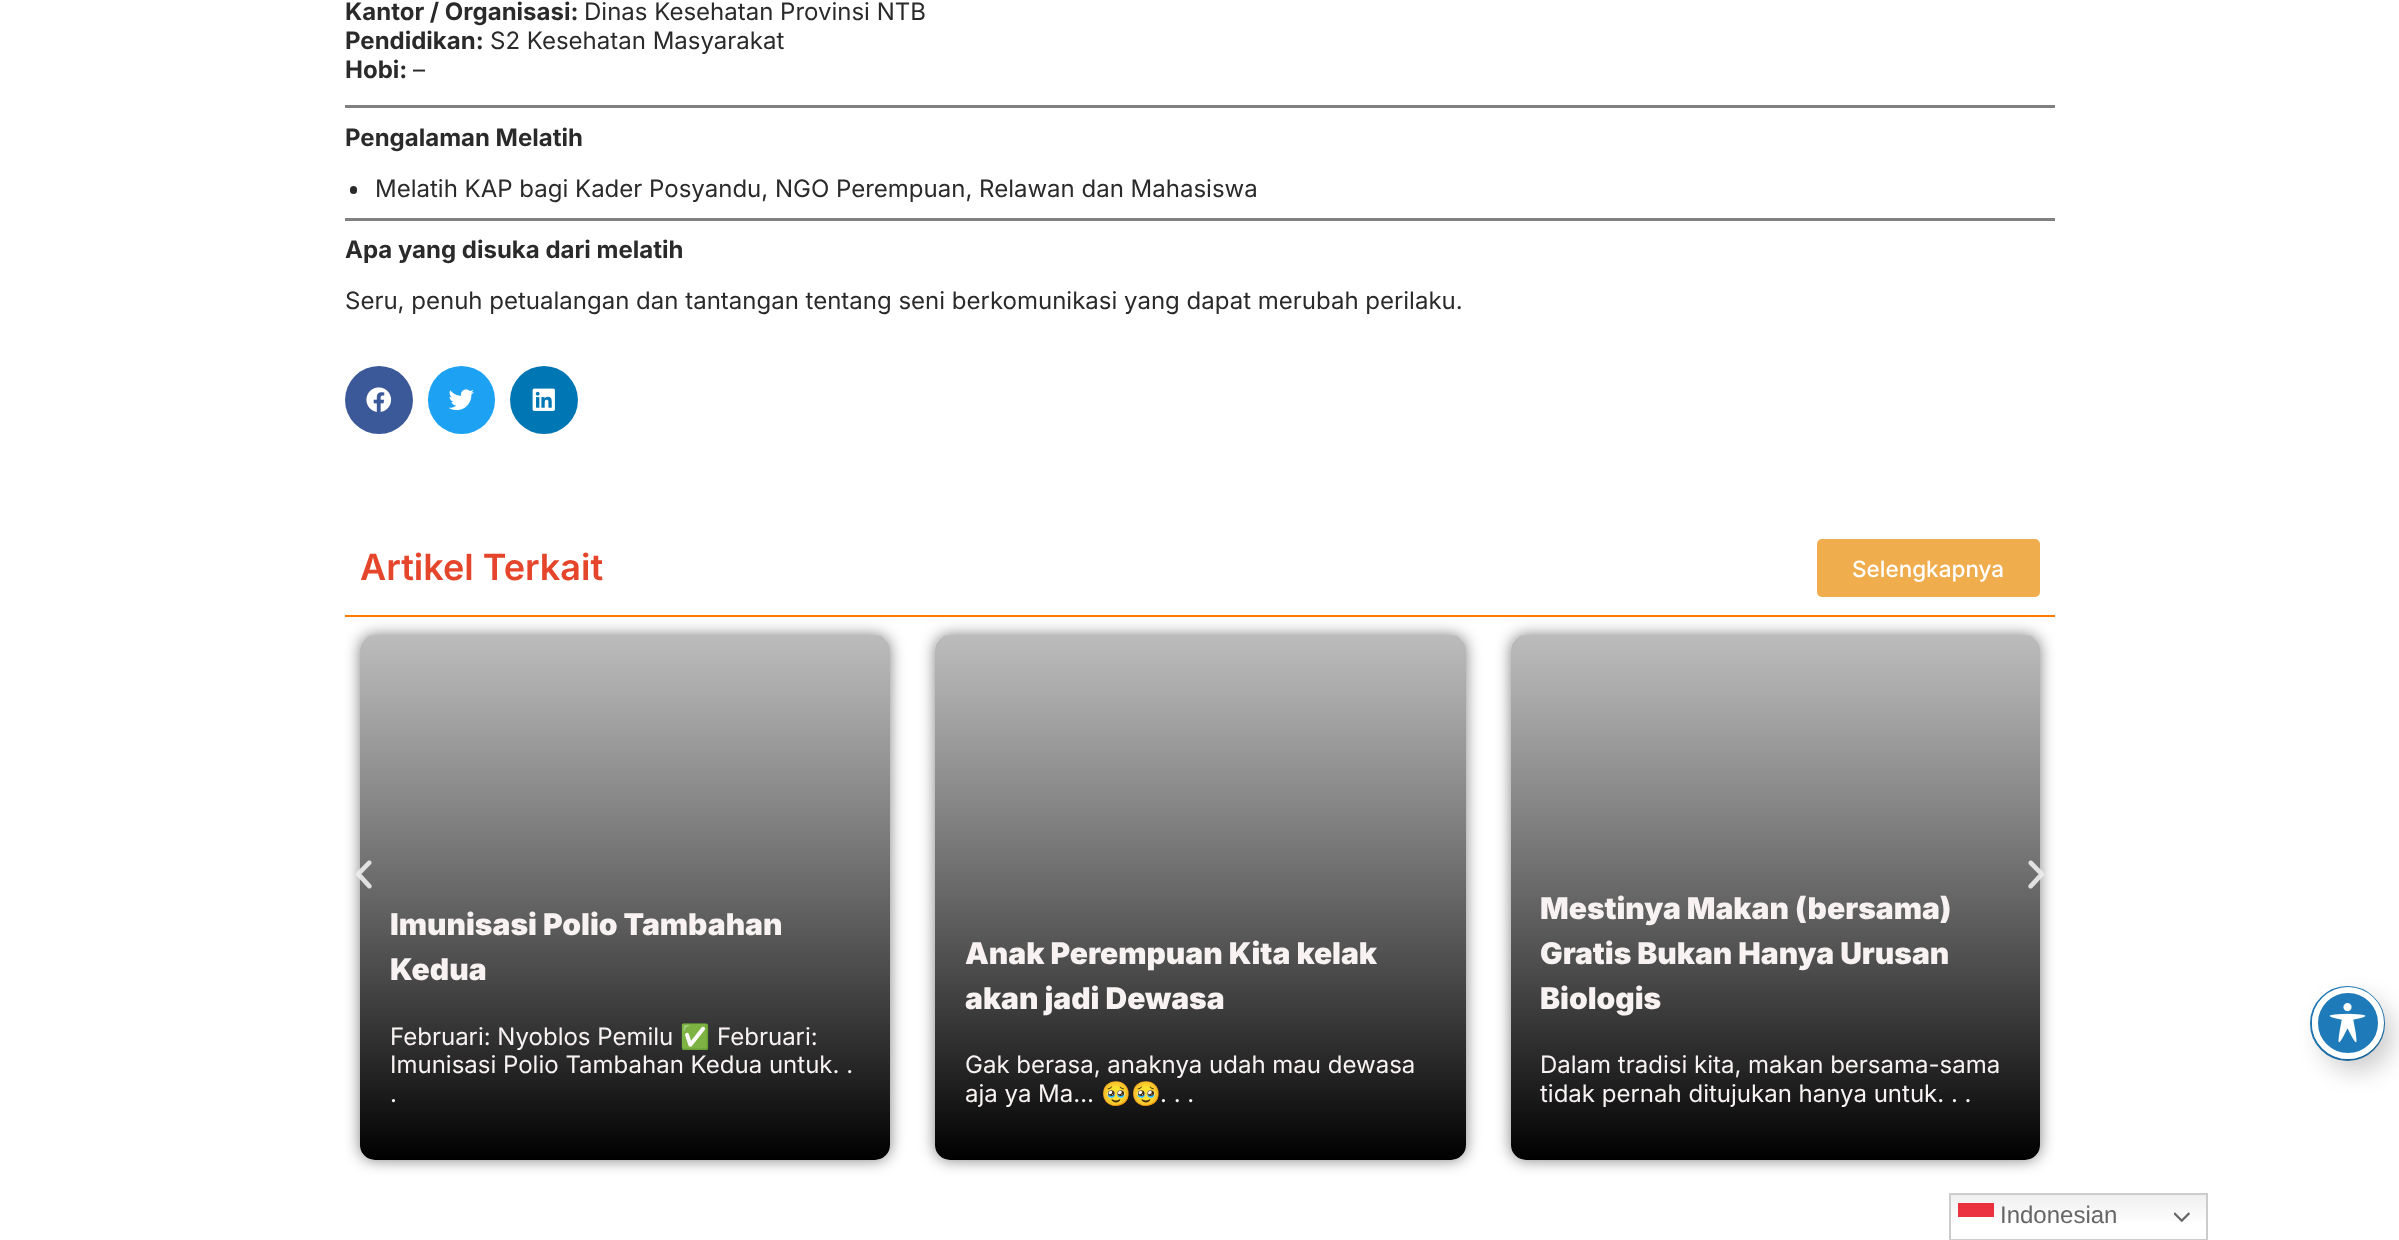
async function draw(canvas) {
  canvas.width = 2399;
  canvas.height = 1240;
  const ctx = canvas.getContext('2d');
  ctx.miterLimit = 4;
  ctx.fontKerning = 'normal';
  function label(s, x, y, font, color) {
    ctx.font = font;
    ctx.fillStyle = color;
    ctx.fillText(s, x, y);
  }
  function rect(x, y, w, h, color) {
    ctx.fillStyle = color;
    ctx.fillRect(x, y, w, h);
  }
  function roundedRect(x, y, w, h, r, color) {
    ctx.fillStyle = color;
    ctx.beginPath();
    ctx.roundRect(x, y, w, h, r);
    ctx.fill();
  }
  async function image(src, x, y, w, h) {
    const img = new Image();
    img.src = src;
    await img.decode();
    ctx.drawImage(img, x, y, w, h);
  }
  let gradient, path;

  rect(0, 0, 2399, 1240, '#fff');
  label('Kantor / Organisasi:', 345, 20, 'bold 24px Inter', '#2a2a2a');
  label('Dinas Kesehatan Provinsi NTB', 584, 20, '24px Inter', '#2a2a2a');
  label('Pendidikan:', 345, 49, 'bold 24px Inter', '#2a2a2a');
  label('S2 Kesehatan Masyarakat', 490, 49, '24px Inter', '#2a2a2a');
  label('Hobi:', 345, 78, 'bold 24px Inter', '#2a2a2a');
  label('–', 413, 78, '24px Inter', '#2a2a2a');
  rect(345, 105, 1710, 3, '#808080');
  label('Pengalaman Melatih', 345, 146, 'bold 24px Inter', '#2a2a2a');
  roundedRect(350, 186, 7, 8, 3.5, '#2a2a2a');
  label('Melatih KAP bagi Kader Posyandu, NGO Perempuan, Relawan dan Mahasiswa', 375, 197, '24px Inter', '#2a2a2a');
  rect(345, 218, 1710, 3, '#808080');
  label('Apa yang disuka dari melatih', 345, 258, 'bold 24px Inter', '#2a2a2a');
  label('Seru, penuh petualangan dan tantangan tentang seni berkomunikasi yang dapat merubah perilaku.', 345, 309, '24px Inter', '#2a2a2a');
  ctx.fillStyle = '#3b5998';
  ctx.beginPath();
  ctx.arc(379, 400, 34, 0, 2 * Math.PI);
  ctx.fill();
  await image('assets/img1.png', 366, 387, 26, 25);
  roundedRect(428, 366, 67, 68, 33.5, '#1da1f2');
  await image('assets/img2.png', 449, 389, 25, 22);
  ctx.fillStyle = '#0077b5';
  ctx.beginPath();
  ctx.arc(544, 400, 34, 0, 2 * Math.PI);
  ctx.fill();
  await image('assets/img3.png', 532, 388, 23, 23);
  label('Artikel Terkait', 360, 580, '600 36px Inter', '#e5462b');
  roundedRect(1817, 539, 223, 58, 5, '#f0ad4e');
  label('Selengkapnya', 1852, 577, '500 22.5px Inter', '#fff');
  rect(345, 615, 1710, 2, '#ff7a01');
  ctx.save();
  path = new Path2D('M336 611H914V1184H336ZM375 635H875C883.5 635 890 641.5 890 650V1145C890 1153.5 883.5 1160 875 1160H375C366.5 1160 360 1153.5 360 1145V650C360 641.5 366.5 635 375 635Z');
  ctx.clip(path, 'evenodd');
  ctx.fillStyle = '#00000080';
  ctx.filter = 'blur(7.5px)';
  ctx.beginPath();
  ctx.roundRect(360, 635, 530, 525, 15);
  ctx.fill();
  ctx.filter = 'none';
  ctx.restore();
  gradient = ctx.createLinearGradient(625, 635, 625, 1160);
  gradient.addColorStop(0, '#2e2e2e52');
  gradient.addColorStop(1, '#000');
  ctx.fillStyle = gradient;
  ctx.beginPath();
  ctx.roundRect(360, 635, 530, 525, 15);
  ctx.fill();
  await image('assets/img4.png', 356, 860, 16, 29);
  ctx.save();
  path = new Path2D('M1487 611H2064V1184H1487ZM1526 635H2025C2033.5 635 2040 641.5 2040 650V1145C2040 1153.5 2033.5 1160 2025 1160H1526C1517.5 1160 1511 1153.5 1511 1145V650C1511 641.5 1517.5 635 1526 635Z');
  ctx.clip(path, 'evenodd');
  ctx.fillStyle = '#00000080';
  ctx.filter = 'blur(7.5px)';
  ctx.beginPath();
  ctx.roundRect(1511, 635, 529, 525, 15);
  ctx.fill();
  ctx.filter = 'none';
  ctx.restore();
  gradient = ctx.createLinearGradient(1775, 635, 1775, 1160);
  gradient.addColorStop(0, '#2e2e2e52');
  gradient.addColorStop(1, '#000');
  ctx.fillStyle = gradient;
  ctx.beginPath();
  ctx.roundRect(1511, 635, 529, 525, 15);
  ctx.fill();
  await image('assets/img5.png', 2028, 860, 16, 29);
  label('Imunisasi Polio Tambahan', 390, 935, '900 30px Inter', '#f8f2f2');
  label('Kedua', 390, 980, '900 30px Inter', '#f8f2f2');
  label('Februari: Nyoblos Pemilu', 390, 1045, '24px Inter', '#f8f2f2');
  label('✅', 680, 1045, '24px Noto Color Emoji', '#f8f2f2');
  label('Februari:', 717, 1045, '24px Inter', '#f8f2f2');
  label('Imunisasi Polio Tambahan Kedua untuk. .', 390, 1073, '24px Inter', '#f8f2f2');
  label('.', 390, 1102, '24px Inter', '#f8f2f2');
  ctx.save();
  path = new Path2D('M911 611H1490V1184H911ZM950 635H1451C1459.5 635 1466 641.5 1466 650V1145C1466 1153.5 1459.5 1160 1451 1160H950C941.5 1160 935 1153.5 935 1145V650C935 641.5 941.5 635 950 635Z');
  ctx.clip(path, 'evenodd');
  ctx.fillStyle = '#00000080';
  ctx.filter = 'blur(7.5px)';
  ctx.beginPath();
  ctx.roundRect(935, 635, 531, 525, 15);
  ctx.fill();
  ctx.filter = 'none';
  ctx.restore();
  gradient = ctx.createLinearGradient(1200, 635, 1200, 1160);
  gradient.addColorStop(0, '#2e2e2e52');
  gradient.addColorStop(1, '#000');
  ctx.fillStyle = gradient;
  ctx.beginPath();
  ctx.roundRect(935, 635, 531, 525, 15);
  ctx.fill();
  label('Anak Perempuan Kita kelak', 965, 964, '900 30px Inter', '#f8f2f2');
  label('akan jadi Dewasa', 965, 1009, '900 30px Inter', '#f8f2f2');
  label('Gak berasa, anaknya udah mau dewasa', 965, 1073, '24px Inter', '#f8f2f2');
  label('aja ya Ma…', 965, 1102, '24px Inter', '#f8f2f2');
  label('🥹🥹', 1101, 1102, '24px Noto Color Emoji', '#f8f2f2');
  label('. . .', 1160, 1102, '24px Inter', '#f8f2f2');
  label('Mestinya Makan (bersama)', 1540, 919, '900 30px Inter', '#f8f2f2');
  label('Gratis Bukan Hanya Urusan', 1540, 964, '900 30px Inter', '#f8f2f2');
  label('Biologis', 1540, 1009, '900 30px Inter', '#f8f2f2');
  label('Dalam tradisi kita, makan bersama-sama', 1540, 1073, '24px Inter', '#f8f2f2');
  label('tidak pernah ditujukan hanya untuk. . .', 1540, 1102, '24px Inter', '#f8f2f2');
  ctx.beginPath();
  ctx.arc(2347.5, 1023.5, 36.5, 0, 2 * Math.PI);
  ctx.strokeStyle = '#1e7ab9';
  ctx.lineWidth = 2;
  ctx.stroke();
  ctx.fillStyle = '#00000033';
  ctx.filter = 'blur(12px)';
  ctx.beginPath();
  ctx.roundRect(2321, 999, 72, 72, 36);
  ctx.fill();
  ctx.filter = 'none';
  ctx.fillStyle = '#1e7ab9';
  ctx.beginPath();
  ctx.arc(2348, 1023, 33, 0, 2 * Math.PI);
  ctx.fill();
  ctx.strokeStyle = '#fff';
  ctx.lineWidth = 6;
  ctx.stroke();
  await image('assets/img6.png', 2329, 1003, 37, 40);
  gradient = ctx.createLinearGradient(2078, 1193, 2078, 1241);
  gradient.addColorStop(0, '#efefef');
  gradient.addColorStop(0.7, '#fff');
  ctx.fillStyle = gradient;
  ctx.fillRect(1951, 1195, 255, 26);
  gradient = ctx.createLinearGradient(2078, 1193, 2078, 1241);
  gradient.addColorStop(0, '#fcfcfc');
  gradient.addColorStop(0.7, '#fff');
  ctx.fillStyle = gradient;
  ctx.fillRect(1958, 1217, 36, 2);
  gradient = ctx.createLinearGradient(2078, 1193, 2078, 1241);
  gradient.addColorStop(0, '#e9303d');
  gradient.addColorStop(0.7, '#ec3341');
  ctx.fillStyle = gradient;
  ctx.fillRect(1958, 1203, 36, 14);
  ctx.strokeStyle = '#ccc';
  ctx.lineWidth = 2;
  ctx.strokeRect(1950, 1194, 257, 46);
  label('Indonesian', 2000, 1223, '24px Liberation Sans', '#666');
  await image('assets/img7.png', 2174, 1212, 16, 10);
}

draw(document.querySelector('canvas'));
